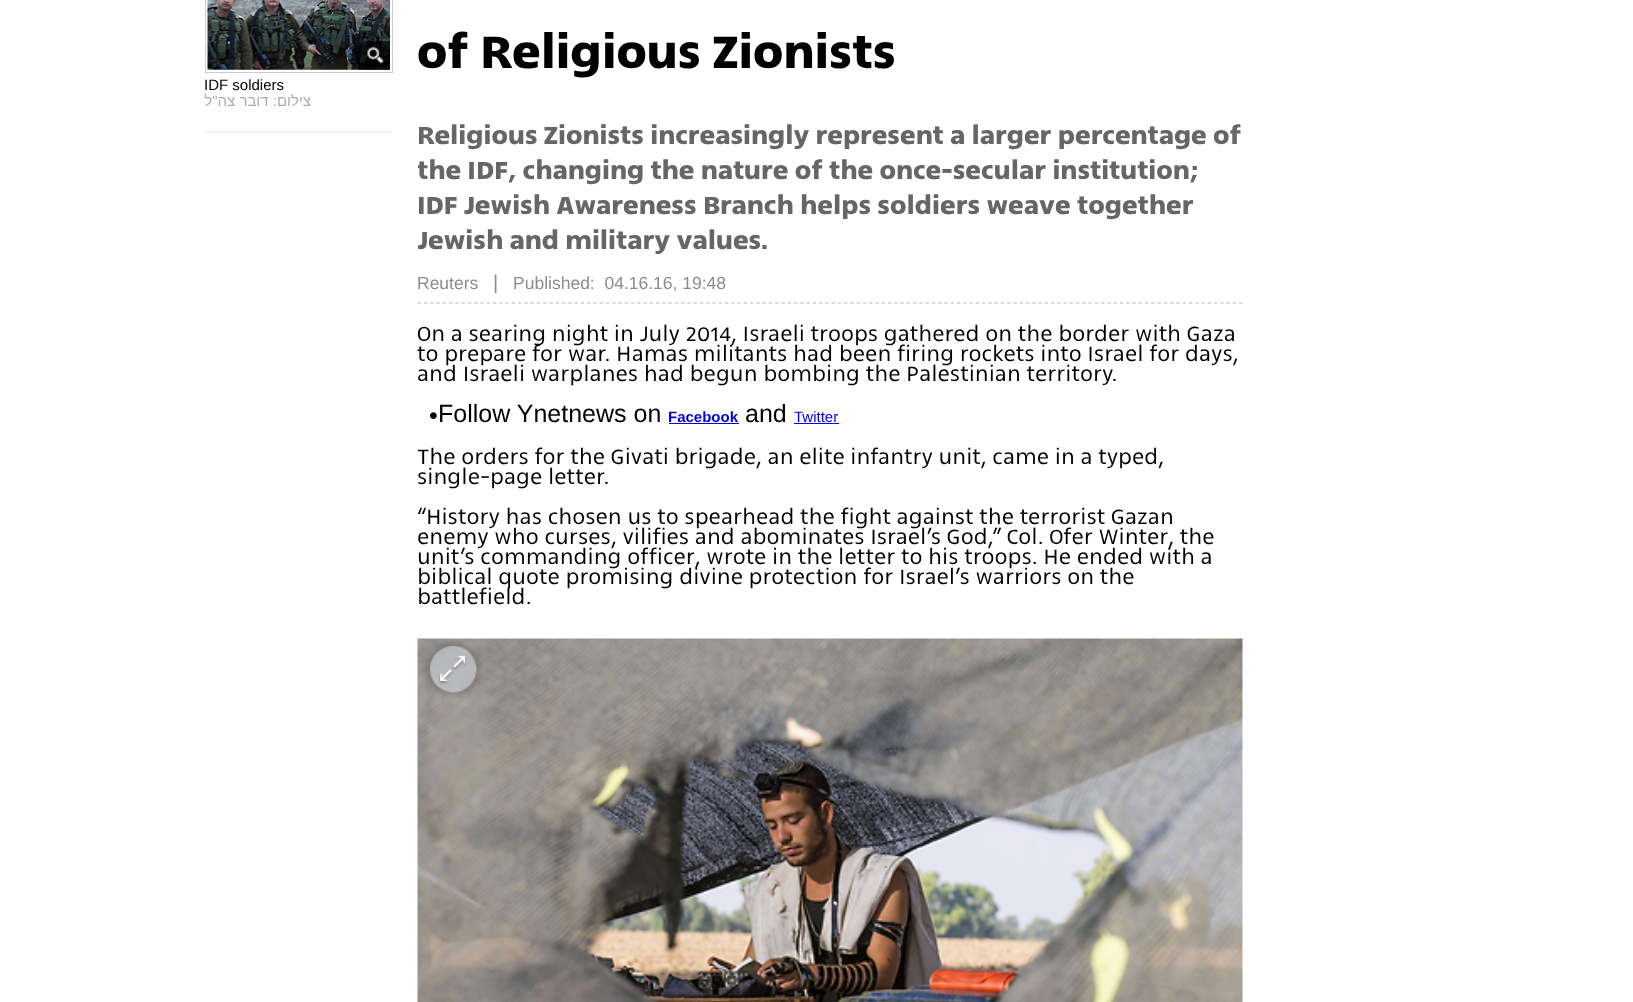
async function draw(canvas) {
  canvas.width = 1633;
  canvas.height = 1002;
  const ctx = canvas.getContext('2d');
  ctx.miterLimit = 4;
  ctx.fontKerning = 'normal';
  function label(s, x, y, font, color) {
    ctx.font = font;
    ctx.fillStyle = color;
    ctx.fillText(s, x, y);
  }
  function rect(x, y, w, h, color) {
    ctx.fillStyle = color;
    ctx.fillRect(x, y, w, h);
  }
  async function image(src, x, y, w, h) {
    const img = new Image();
    img.src = src;
    await img.decode();
    ctx.drawImage(img, x, y, w, h);
  }
  let path;

  rect(0, 0, 1633, 1002, '#fff');
  ctx.strokeStyle = '#cccecd';
  ctx.strokeRect(205.5, -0.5, 187, 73);
  await image('assets/img1.png', 207, 0, 183, 70);
  await image('assets/img2.png', 358, 41, 32, 29);
  label('IDF soldiers', 204, 90, '15px Liberation Sans', '#000');
  ctx.direction = 'rtl';
  label('צילום: דובר צה"ל', 311, 106, '15px Liberation Sans', '#adacab');
  path = new Path2D('M205 132H392.5');
  ctx.lineWidth = 1.2;
  ctx.setLineDash([1.25, 1.25]);
  ctx.stroke(path);
  ctx.direction = 'ltr';
  label('of Religious Zionists', 417, 68, 'bold 55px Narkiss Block', '#000');
  label('Religious Zionists increasingly represent a larger percentage of', 417, 144, 'bold 30px Narkiss Block', '#666');
  ctx.save();
  ctx.beginPath();
  ctx.rect(418, 0, 825, 323);
  ctx.clip();
  label('the IDF, changing the nature of the once-secular institution;', 417, 179, 'bold 30px Narkiss Block', '#666');
  ctx.restore();
  label('IDF Jewish Awareness Branch helps soldiers weave together', 417, 214, 'bold 30px Narkiss Block', '#666');
  ctx.save();
  ctx.beginPath();
  ctx.rect(418, 0, 825, 323);
  ctx.clip();
  label('Jewish and military values.', 417, 249, 'bold 30px Narkiss Block', '#666');
  ctx.restore();
  label('Reuters', 417, 289, '17.5px Liberation Sans', '#8c8c8c');
  label('|', 493, 289, '20px Liberation Sans', '#8c8c8c');
  label('Published:  04.16.16, 19:48', 513, 289, '17.5px Liberation Sans', '#8c8c8c');
  path = new Path2D('M417.5 303H1242.5');
  ctx.strokeStyle = '#bcbcbc';
  ctx.setLineDash([3.75, 2.52]);
  ctx.stroke(path);
  label('On a searing night in July 2014, Israeli troops gathered on the border with Gaza', 417, 341, '300 25px Narkiss Block', '#000');
  label('to prepare for war. Hamas militants had been firing rockets into Israel for days,', 417, 361, '300 25px Narkiss Block', '#000');
  label('and Israeli warplanes had begun bombing the Palestinian territory.', 417, 381, '300 25px Narkiss Block', '#000');
  label('•', 429, 424, '25px Liberation Sans', '#000');
  label('Follow Ynetnews on', 438, 422, '25px Liberation Sans', '#000');
  label('Facebook', 668, 422, 'bold 15px Liberation Sans', '#00e');
  rect(669, 423, 70, 1, '#00e');
  label('and', 745, 422, '25px Liberation Sans', '#000');
  label('Twitter', 794, 422, '15px Liberation Sans', '#00e');
  rect(794, 423, 45, 1, '#00e');
  label('The orders for the Givati brigade, an elite infantry unit, came in a typed,', 417, 464, '300 25px Narkiss Block', '#000');
  label('single-page letter.', 417, 484, '300 25px Narkiss Block', '#000');
  label('“History has chosen us to spearhead the fight against the terrorist Gazan', 417, 524, '300 25px Narkiss Block', '#000');
  label('enemy who curses, vilifies and abominates Israel’s God,” Col. Ofer Winter, the', 417, 544, '300 25px Narkiss Block', '#000');
  label('unit’s commanding officer, wrote in the letter to his troops. He ended with a', 417, 564, '300 25px Narkiss Block', '#000');
  label('biblical quote promising divine protection for Israel’s warriors on the', 417, 584, '300 25px Narkiss Block', '#000');
  label('battlefield.', 417, 604, '300 25px Narkiss Block', '#000');
  await image('assets/img3.png', 417, 638, 826, 364);
  await image('assets/img4.png', 422, 641, 61, 56);
}

draw(document.querySelector('canvas'));
